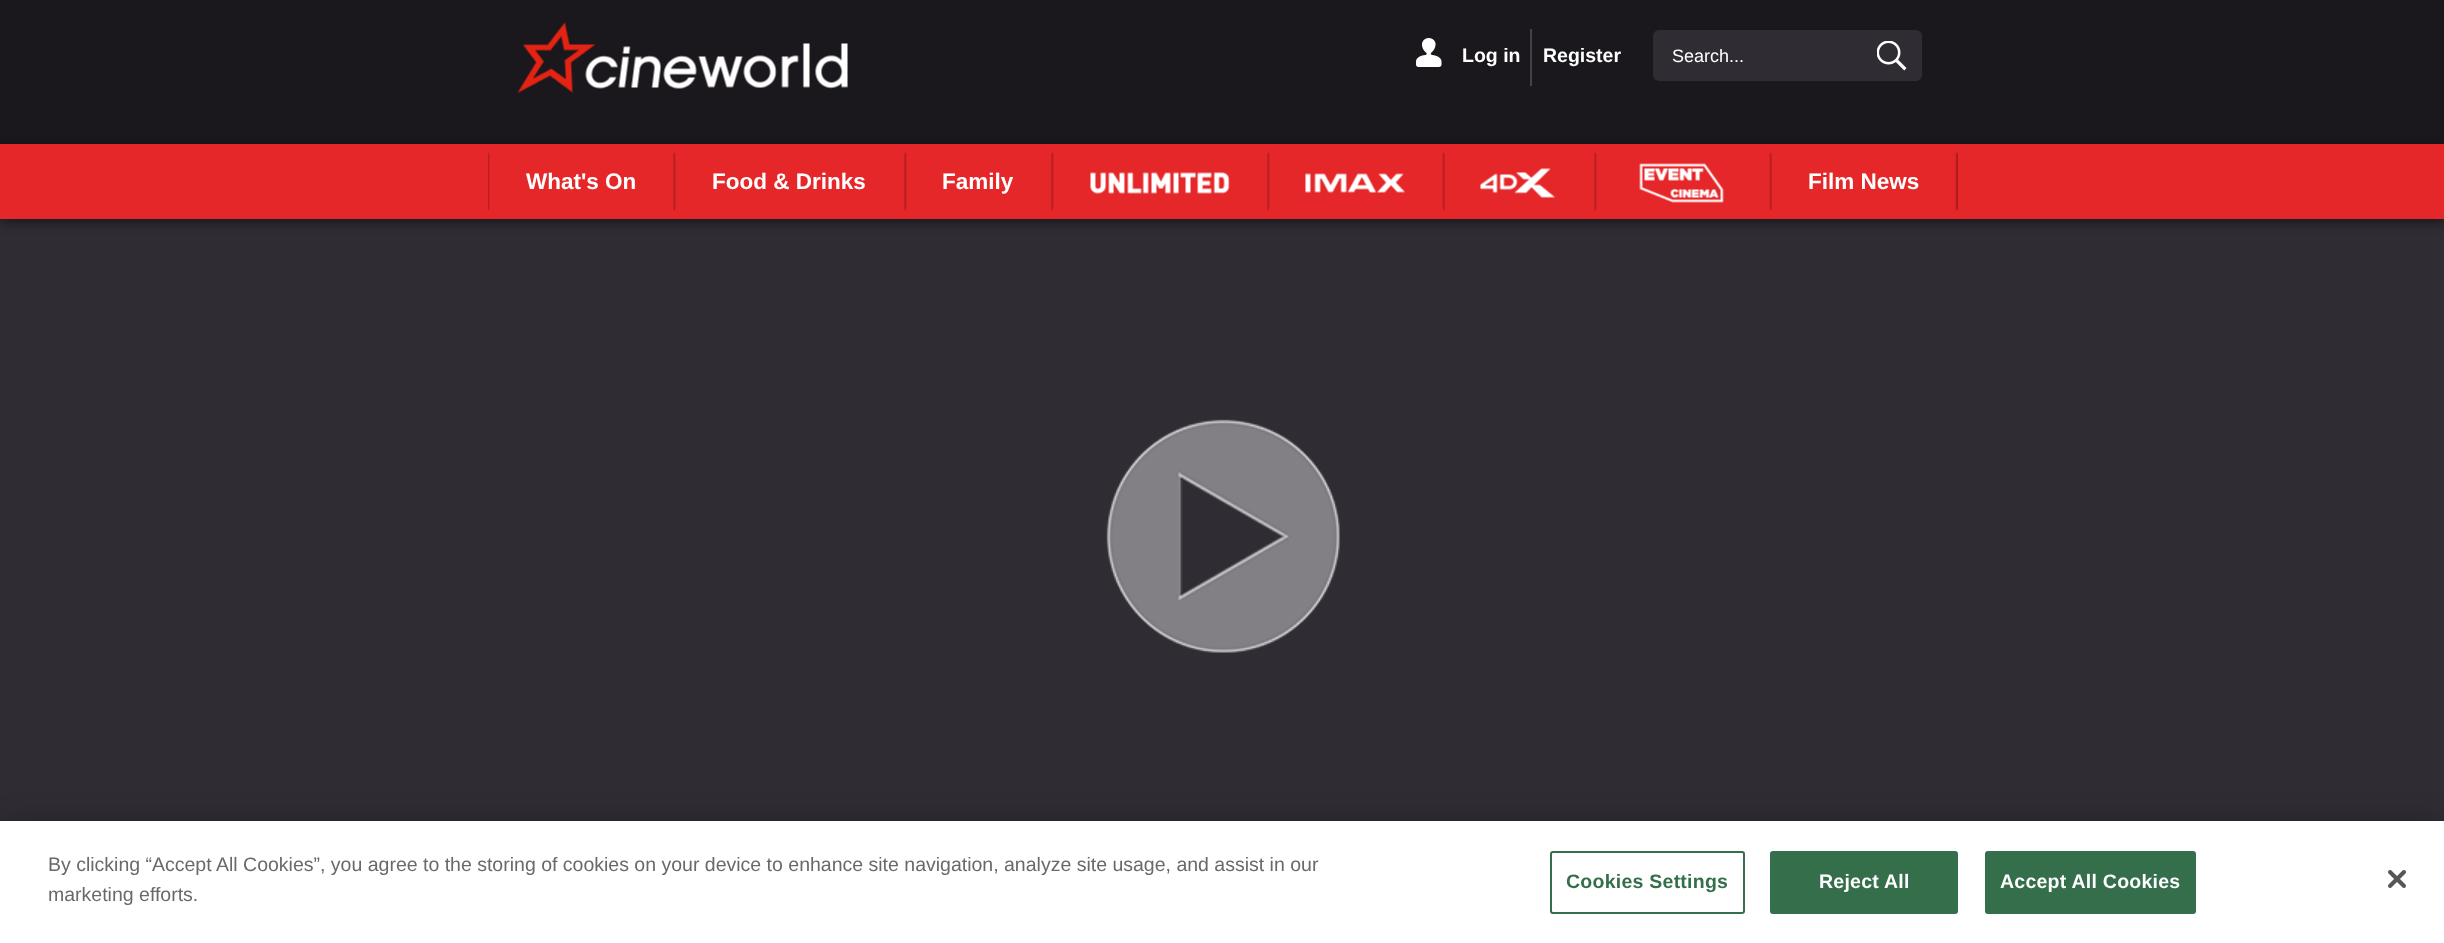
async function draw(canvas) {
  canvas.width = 2444;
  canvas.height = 943;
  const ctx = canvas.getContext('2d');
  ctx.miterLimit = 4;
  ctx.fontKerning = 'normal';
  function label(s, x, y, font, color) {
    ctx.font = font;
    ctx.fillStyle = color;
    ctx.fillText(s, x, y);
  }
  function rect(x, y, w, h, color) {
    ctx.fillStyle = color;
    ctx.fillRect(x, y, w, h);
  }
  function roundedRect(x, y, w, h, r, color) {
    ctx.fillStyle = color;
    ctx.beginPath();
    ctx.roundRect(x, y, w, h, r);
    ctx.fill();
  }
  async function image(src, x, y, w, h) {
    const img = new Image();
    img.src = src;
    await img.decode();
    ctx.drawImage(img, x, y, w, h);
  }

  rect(0, 0, 2444, 943, '#2f2c34');
  rect(0, 0, 2444, 144, '#1a181d');
  await image('assets/img1.png', 517, 22, 331, 71);
  rect(1530, 29, 2, 57, '#434149');
  await image('assets/img2.png', 1416, 38, 26, 29);
  label('Log in', 1462, 62, 'bold 19.5px Liberation Sans', '#fff');
  label('Register', 1543, 62, 'bold 19.5px Liberation Sans', '#fff');
  roundedRect(1653, 30, 269, 51, 6, '#2f2c34');
  label('Search...', 1672, 62, '18px Liberation Sans', '#fff');
  await image('assets/img3.png', 1877, 41, 30, 30);
  ctx.fillStyle = '#00000080';
  ctx.filter = 'blur(6px)';
  ctx.beginPath();
  ctx.rect(0, 147, 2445, 75);
  ctx.fill();
  ctx.filter = 'none';
  rect(0, 144, 2444, 75, '#e52729');
  await image('assets/img4.png', 488, 152, 2, 59);
  label('What\'s On', 526, 189, 'bold 22.5px Liberation Sans', '#fff');
  await image('assets/img5.png', 673, 152, 3, 59);
  label('Food & Drinks', 712, 189, 'bold 22.5px Liberation Sans', '#fff');
  await image('assets/img5.png', 904, 152, 3, 59);
  label('Family', 942, 189, 'bold 22.5px Liberation Sans', '#fff');
  await image('assets/img5.png', 1051, 152, 3, 59);
  await image('assets/img6.png', 1090, 172, 140, 22);
  await image('assets/img5.png', 1267, 152, 3, 59);
  await image('assets/img7.png', 1305, 173, 100, 20);
  await image('assets/img8.png', 1442, 152, 3, 59);
  await image('assets/img9.png', 1480, 168, 75, 30);
  await image('assets/img5.png', 1594, 152, 3, 59);
  await image('assets/img10.png', 1639, 163, 85, 40);
  await image('assets/img8.png', 1769, 152, 3, 59);
  label('Film News', 1808, 189, 'bold 22.5px Liberation Sans', '#fff');
  await image('assets/img11.png', 1955, 152, 3, 59);
  await image('assets/img12.png', 1106, 419, 234, 234);
  ctx.fillStyle = '#00000033';
  ctx.filter = 'blur(13.5px)';
  ctx.beginPath();
  ctx.rect(0, 821, 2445, 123);
  ctx.fill();
  ctx.filter = 'none';
  rect(0, 821, 2444, 122, '#fff');
  label('By clicking “Accept All Cookies”, you agree to the storing of cookies on your device to enhance site navigation, analyze site usage, and assist in our', 48, 871, '19.5px Liberation Sans', '#696969');
  label('marketing efforts.', 48, 901, '19.5px Liberation Sans', '#696969');
  ctx.beginPath();
  ctx.roundRect(1551, 852, 193, 61, 2);
  ctx.strokeStyle = '#346e4a';
  ctx.lineWidth = 2;
  ctx.stroke();
  ctx.letterSpacing = '0.25px';
  label('Cookies Settings', 1566, 888, 'bold 19.5px Liberation Sans', '#346e4a');
  ctx.beginPath();
  ctx.roundRect(1771, 852, 186, 61, 2);
  ctx.fill();
  ctx.stroke();
  label('Reject All', 1819, 888, 'bold 19.5px Liberation Sans', '#fff');
  ctx.fillStyle = '#346e4a';
  ctx.beginPath();
  ctx.roundRect(1986, 852, 209, 61, 2);
  ctx.fill();
  ctx.stroke();
  label('Accept All Cookies', 2000, 888, 'bold 19.5px Liberation Sans', '#fff');
  await image('assets/img13.png', 2388, 870, 18, 18);
}

draw(document.querySelector('canvas'));
